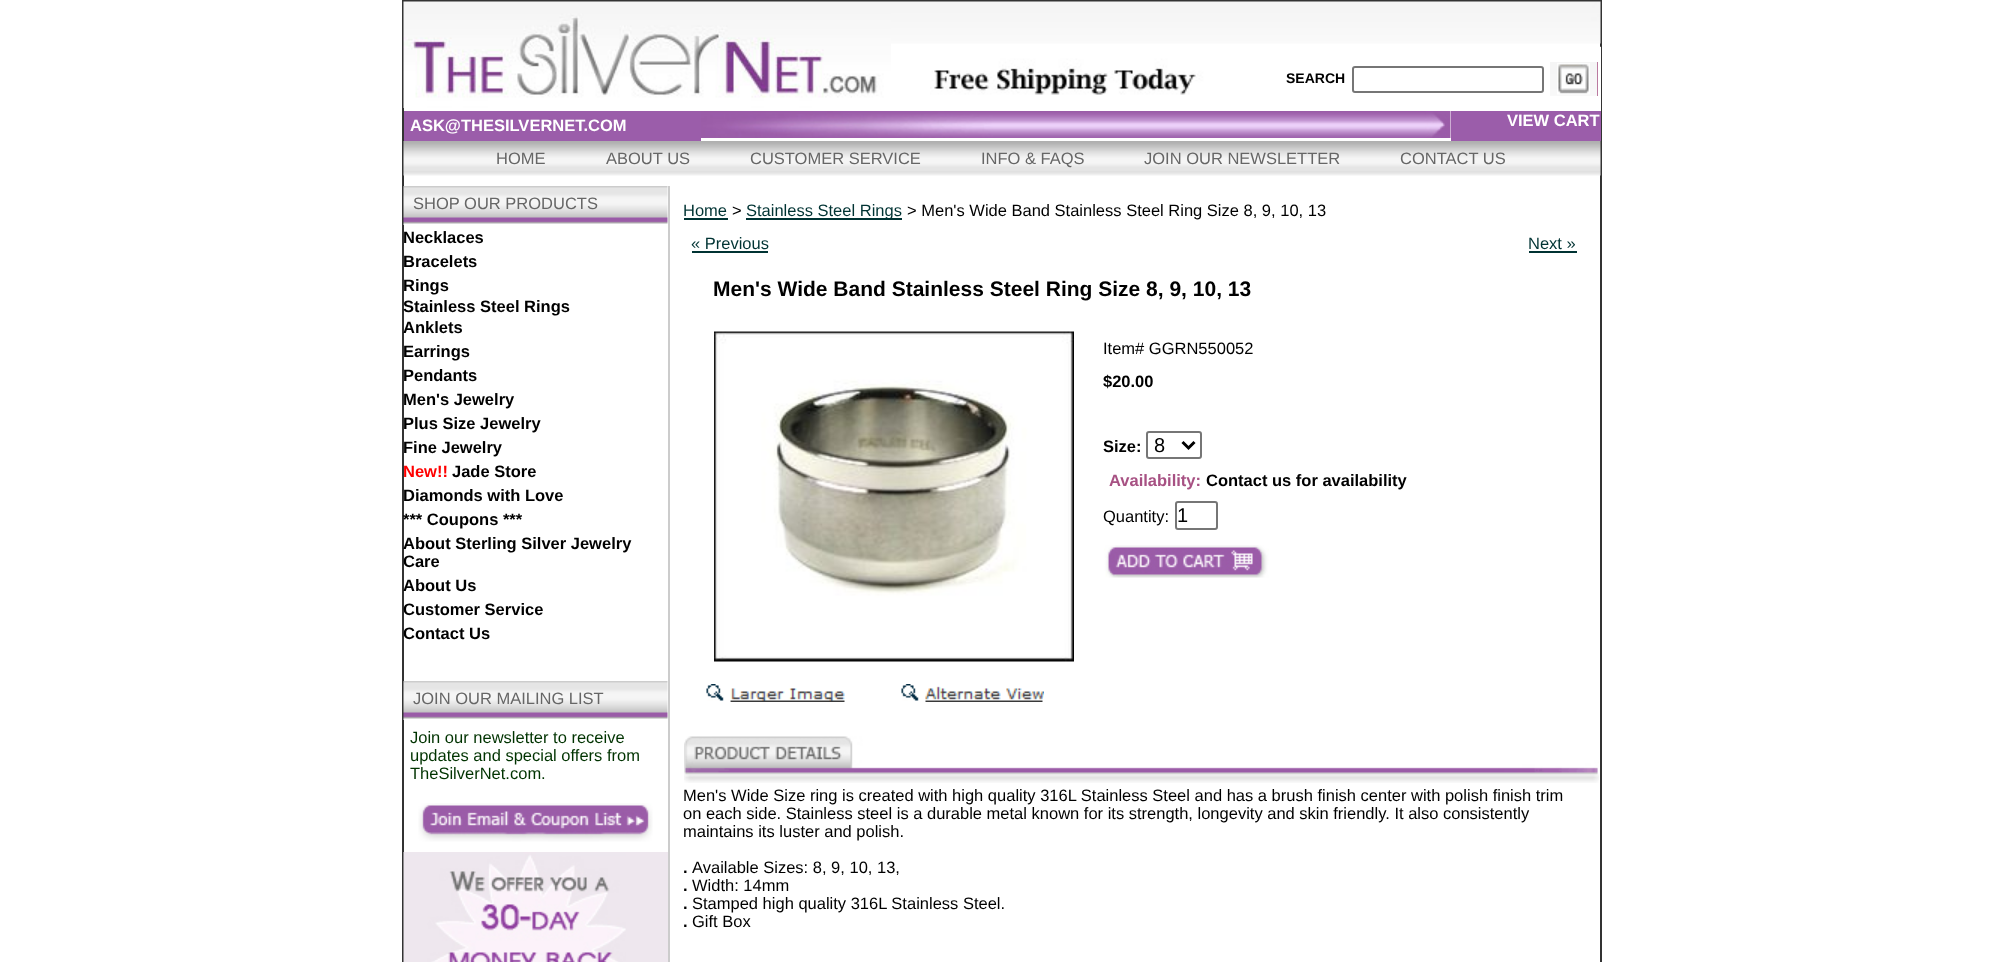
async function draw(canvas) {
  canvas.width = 2002;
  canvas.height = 962;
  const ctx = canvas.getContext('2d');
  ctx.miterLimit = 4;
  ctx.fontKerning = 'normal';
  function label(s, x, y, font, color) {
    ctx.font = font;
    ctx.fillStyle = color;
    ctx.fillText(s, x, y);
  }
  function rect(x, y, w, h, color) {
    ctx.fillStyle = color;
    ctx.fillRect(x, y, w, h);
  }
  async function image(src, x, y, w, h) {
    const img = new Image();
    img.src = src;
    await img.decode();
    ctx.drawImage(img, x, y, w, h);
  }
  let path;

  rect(0, 0, 2002, 962, '#fff');
  ctx.strokeStyle = '#333';
  ctx.lineWidth = 2;
  ctx.strokeRect(403, 1, 1198, 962);
  await image('assets/img1.png', 403, 1, 488, 107);
  await image('assets/img2.png', 891, 1, 710, 43);
  rect(1600, 47, 1, 64, '#fff');
  await image('assets/img3.png', 930, 46, 671, 49);
  rect(1597, 62, 1, 34, '#a75183');
  await image('assets/img4.png', 1550, 62, 48, 34);
  label('SEARCH', 1286, 83, 'bold 14px Liberation Sans', '#000');
  ctx.beginPath();
  ctx.roundRect(1353, 67, 190, 25, 2);
  ctx.strokeStyle = '#767676';
  ctx.stroke();
  rect(404, 111, 297, 30, '#9b5daa');
  label('ASK@THESILVERNET.COM', 410, 131, 'bold 16.5px Liberation Sans', '#fff');
  await image('assets/img5.png', 701, 111, 750, 27);
  rect(1451, 111, 150, 30, '#9b5daa');
  label('VIEW CART', 1507, 126, 'bold 16.5px Liberation Sans', '#fff');
  await image('assets/img6.png', 403, 141, 1198, 35);
  label('HOME', 496, 164, '16.5px Liberation Sans', '#666');
  label('ABOUT US', 606, 164, '16.5px Liberation Sans', '#666');
  label('CUSTOMER SERVICE', 750, 164, '16.5px Liberation Sans', '#666');
  label('INFO & FAQS', 981, 164, '16.5px Liberation Sans', '#666');
  label('JOIN OUR NEWSLETTER', 1144, 164, '16.5px Liberation Sans', '#666');
  label('CONTACT US', 1400, 164, '16.5px Liberation Sans', '#666');
  rect(668, 186, 2, 776, '#ccc');
  await image('assets/img7.png', 403, 186, 265, 39);
  label('SHOP OUR PRODUCTS', 413, 209, '16.5px Liberation Sans', '#666');
  label('Necklaces', 403, 243, 'bold 16.5px Liberation Sans', '#000');
  label('Bracelets', 403, 267, 'bold 16.5px Liberation Sans', '#000');
  label('Rings', 403, 291, 'bold 16.5px Liberation Sans', '#000');
  label('Stainless Steel Rings', 403, 312, 'bold 16.5px Liberation Sans', '#000');
  label('Anklets', 403, 333, 'bold 16.5px Liberation Sans', '#000');
  label('Earrings', 403, 357, 'bold 16.5px Liberation Sans', '#000');
  label('Pendants', 403, 381, 'bold 16.5px Liberation Sans', '#000');
  label('Men\'s Jewelry', 403, 405, 'bold 16.5px Liberation Sans', '#000');
  label('Plus Size Jewelry', 403, 429, 'bold 16.5px Liberation Sans', '#000');
  label('Fine Jewelry', 403, 453, 'bold 16.5px Liberation Sans', '#000');
  label('New!!', 403, 477, 'bold 16.5px Liberation Sans', '#f00');
  label('Jade Store', 452, 477, 'bold 16.5px Liberation Sans', '#000');
  label('Diamonds with Love', 403, 501, 'bold 16.5px Liberation Sans', '#000');
  label('*** Coupons ***', 403, 525, 'bold 16.5px Liberation Sans', '#000');
  label('About Sterling Silver Jewelry', 403, 549, 'bold 16.5px Liberation Sans', '#000');
  label('Care', 403, 567, 'bold 16.5px Liberation Sans', '#000');
  label('About Us', 403, 591, 'bold 16.5px Liberation Sans', '#000');
  label('Customer Service', 403, 615, 'bold 16.5px Liberation Sans', '#000');
  label('Contact Us', 403, 639, 'bold 16.5px Liberation Sans', '#000');
  await image('assets/img7.png', 403, 681, 265, 39);
  label('JOIN OUR MAILING LIST', 413, 704, '16.5px Liberation Sans', '#666');
  label('Join our newsletter to receive', 410, 743, '16.5px Liberation Sans', '#030');
  label('updates and special offers from', 410, 761, '16.5px Liberation Sans', '#030');
  label('TheSilverNet.com.', 410, 779, '16.5px Liberation Sans', '#030');
  await image('assets/img8.png', 418, 803, 235, 39);
  rect(626, 852, 42, 110, '#eee7ee');
  await image('assets/img9.png', 403, 852, 223, 110);
  label('Home', 683, 216, '16.5px Liberation Sans', '#033');
  rect(684, 218, 44, 2, '#033');
  label('>', 732, 216, '16.5px Liberation Sans', '#000');
  rect(746, 218, 156, 2, '#033');
  label('Stainless Steel Rings', 746, 216, '16.5px Liberation Sans', '#033');
  label('> Men\'s Wide Band Stainless Steel Ring Size 8, 9, 10, 13', 907, 216, '16.5px Liberation Sans', '#000');
  label('« Previous', 691, 249, '16.5px Liberation Sans', '#033');
  rect(692, 251, 76, 2, '#033');
  label('Next »', 1528, 249, '16.5px Liberation Sans', '#033');
  rect(1529, 251, 48, 2, '#033');
  label('Men\'s Wide Band Stainless Steel Ring Size 8, 9, 10, 13', 713, 296, 'bold 21px Liberation Sans', '#000');
  await image('assets/img10.png', 714, 331, 360, 331);
  await image('assets/img11.png', 706, 684, 139, 18);
  await image('assets/img12.png', 901, 684, 143, 18);
  label('Item# GGRN550052', 1103, 354, '16.5px Liberation Sans', '#000');
  label('$20.00', 1103, 387, 'bold 16.5px Liberation Sans', '#000');
  label('Size:', 1103, 452, 'bold 16.5px Liberation Sans', '#000');
  ctx.beginPath();
  ctx.roundRect(1147, 432, 54, 26, 2);
  ctx.stroke();
  path = new Path2D('M1182.5 442L1188.5 448L1194.5 442');
  ctx.strokeStyle = '#000';
  ctx.lineWidth = 3;
  ctx.stroke(path);
  label('8', 1154, 452, '20px Liberation Sans', '#000');
  label('Availability:', 1109, 486, 'bold 16.5px Liberation Sans', '#a75183');
  label('Contact us for availability', 1206, 486, 'bold 16.5px Liberation Sans', '#000');
  label('Quantity:', 1103, 522, '16.5px Liberation Sans', '#000');
  ctx.beginPath();
  ctx.roundRect(1176, 502, 41, 27, 2);
  ctx.strokeStyle = '#767676';
  ctx.lineWidth = 2;
  ctx.stroke();
  label('1', 1177, 522, '20px Liberation Sans', '#000');
  await image('assets/img13.png', 1104, 545, 165, 33);
  await image('assets/img14.png', 684, 736, 915, 47);
  label('Men\'s Wide Size ring is created with high quality 316L Stainless Steel and has a brush finish center with polish finish trim', 683, 801, '16.5px Liberation Sans', '#000');
  label('on each side. Stainless steel is a durable metal known for its strength, longevity and skin friendly. It also consistently', 683, 819, '16.5px Liberation Sans', '#000');
  label('maintains its luster and polish.', 683, 837, '16.5px Liberation Sans', '#000');
  label('.', 683, 873, 'bold 16.5px Liberation Sans', '#000');
  label('Available Sizes: 8, 9, 10, 13,', 692, 873, '16.5px Liberation Sans', '#000');
  label('.', 683, 891, 'bold 16.5px Liberation Sans', '#000');
  label('Width: 14mm', 692, 891, '16.5px Liberation Sans', '#000');
  label('.', 683, 909, 'bold 16.5px Liberation Sans', '#000');
  label('Stamped high quality 316L Stainless Steel.', 692, 909, '16.5px Liberation Sans', '#000');
  label('.', 683, 927, 'bold 16.5px Liberation Sans', '#000');
  label('Gift Box', 692, 927, '16.5px Liberation Sans', '#000');
}

draw(document.querySelector('canvas'));
